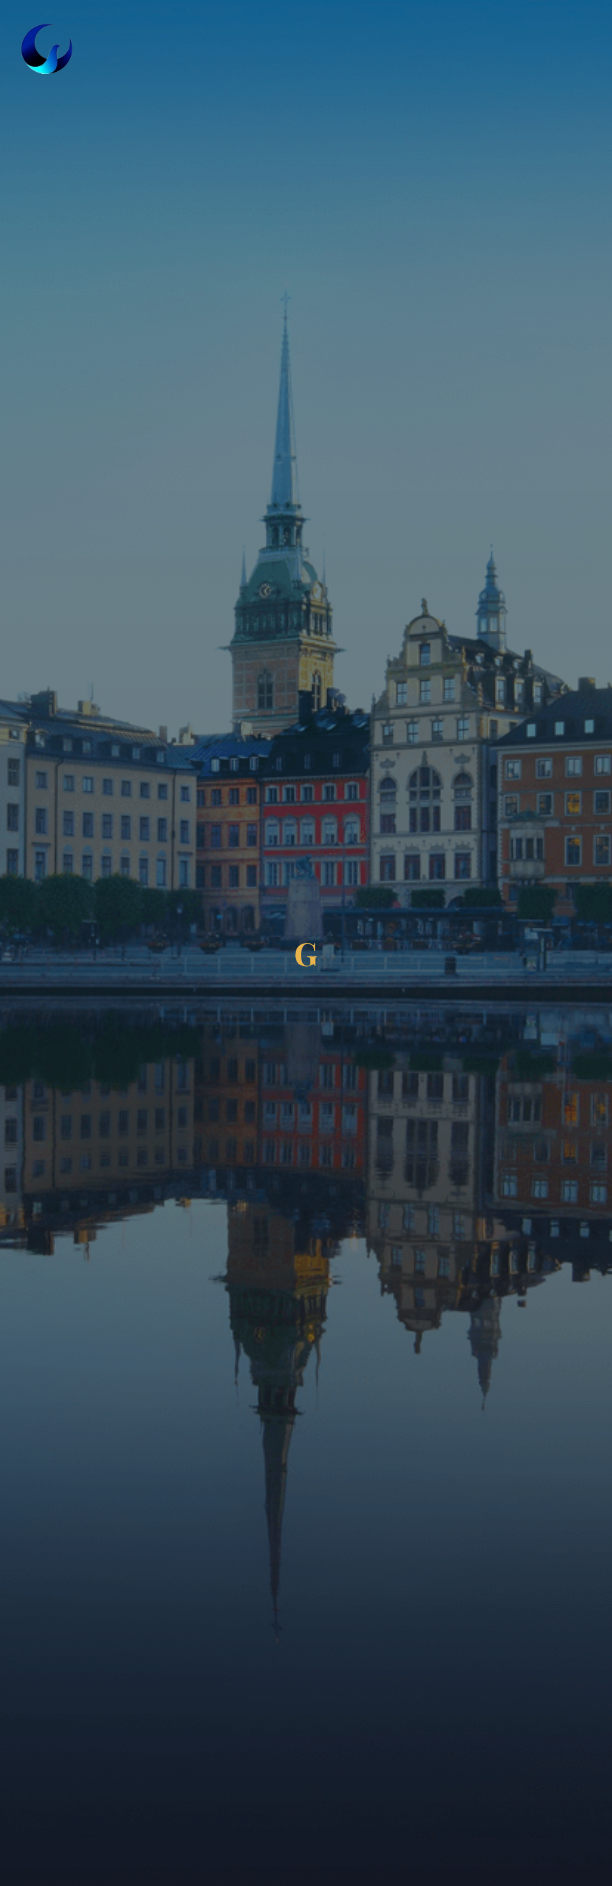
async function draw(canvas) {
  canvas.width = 612;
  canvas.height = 1886;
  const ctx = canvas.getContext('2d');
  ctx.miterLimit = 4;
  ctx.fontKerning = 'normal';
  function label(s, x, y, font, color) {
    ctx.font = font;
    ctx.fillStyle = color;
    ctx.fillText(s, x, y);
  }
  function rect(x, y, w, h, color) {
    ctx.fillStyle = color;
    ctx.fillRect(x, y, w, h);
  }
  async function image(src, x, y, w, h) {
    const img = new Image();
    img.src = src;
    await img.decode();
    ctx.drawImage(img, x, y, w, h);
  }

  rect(0, 0, 612, 1886, '#fff');
  await image('assets/img2.png', 0, 0, 612, 1886);
  await image('assets/img1.png', 21, 23, 52, 51);
  label('G', 294, 966, 'bold 32px Playfair Display', '#e9b44c');
}

draw(document.querySelector('canvas'));
